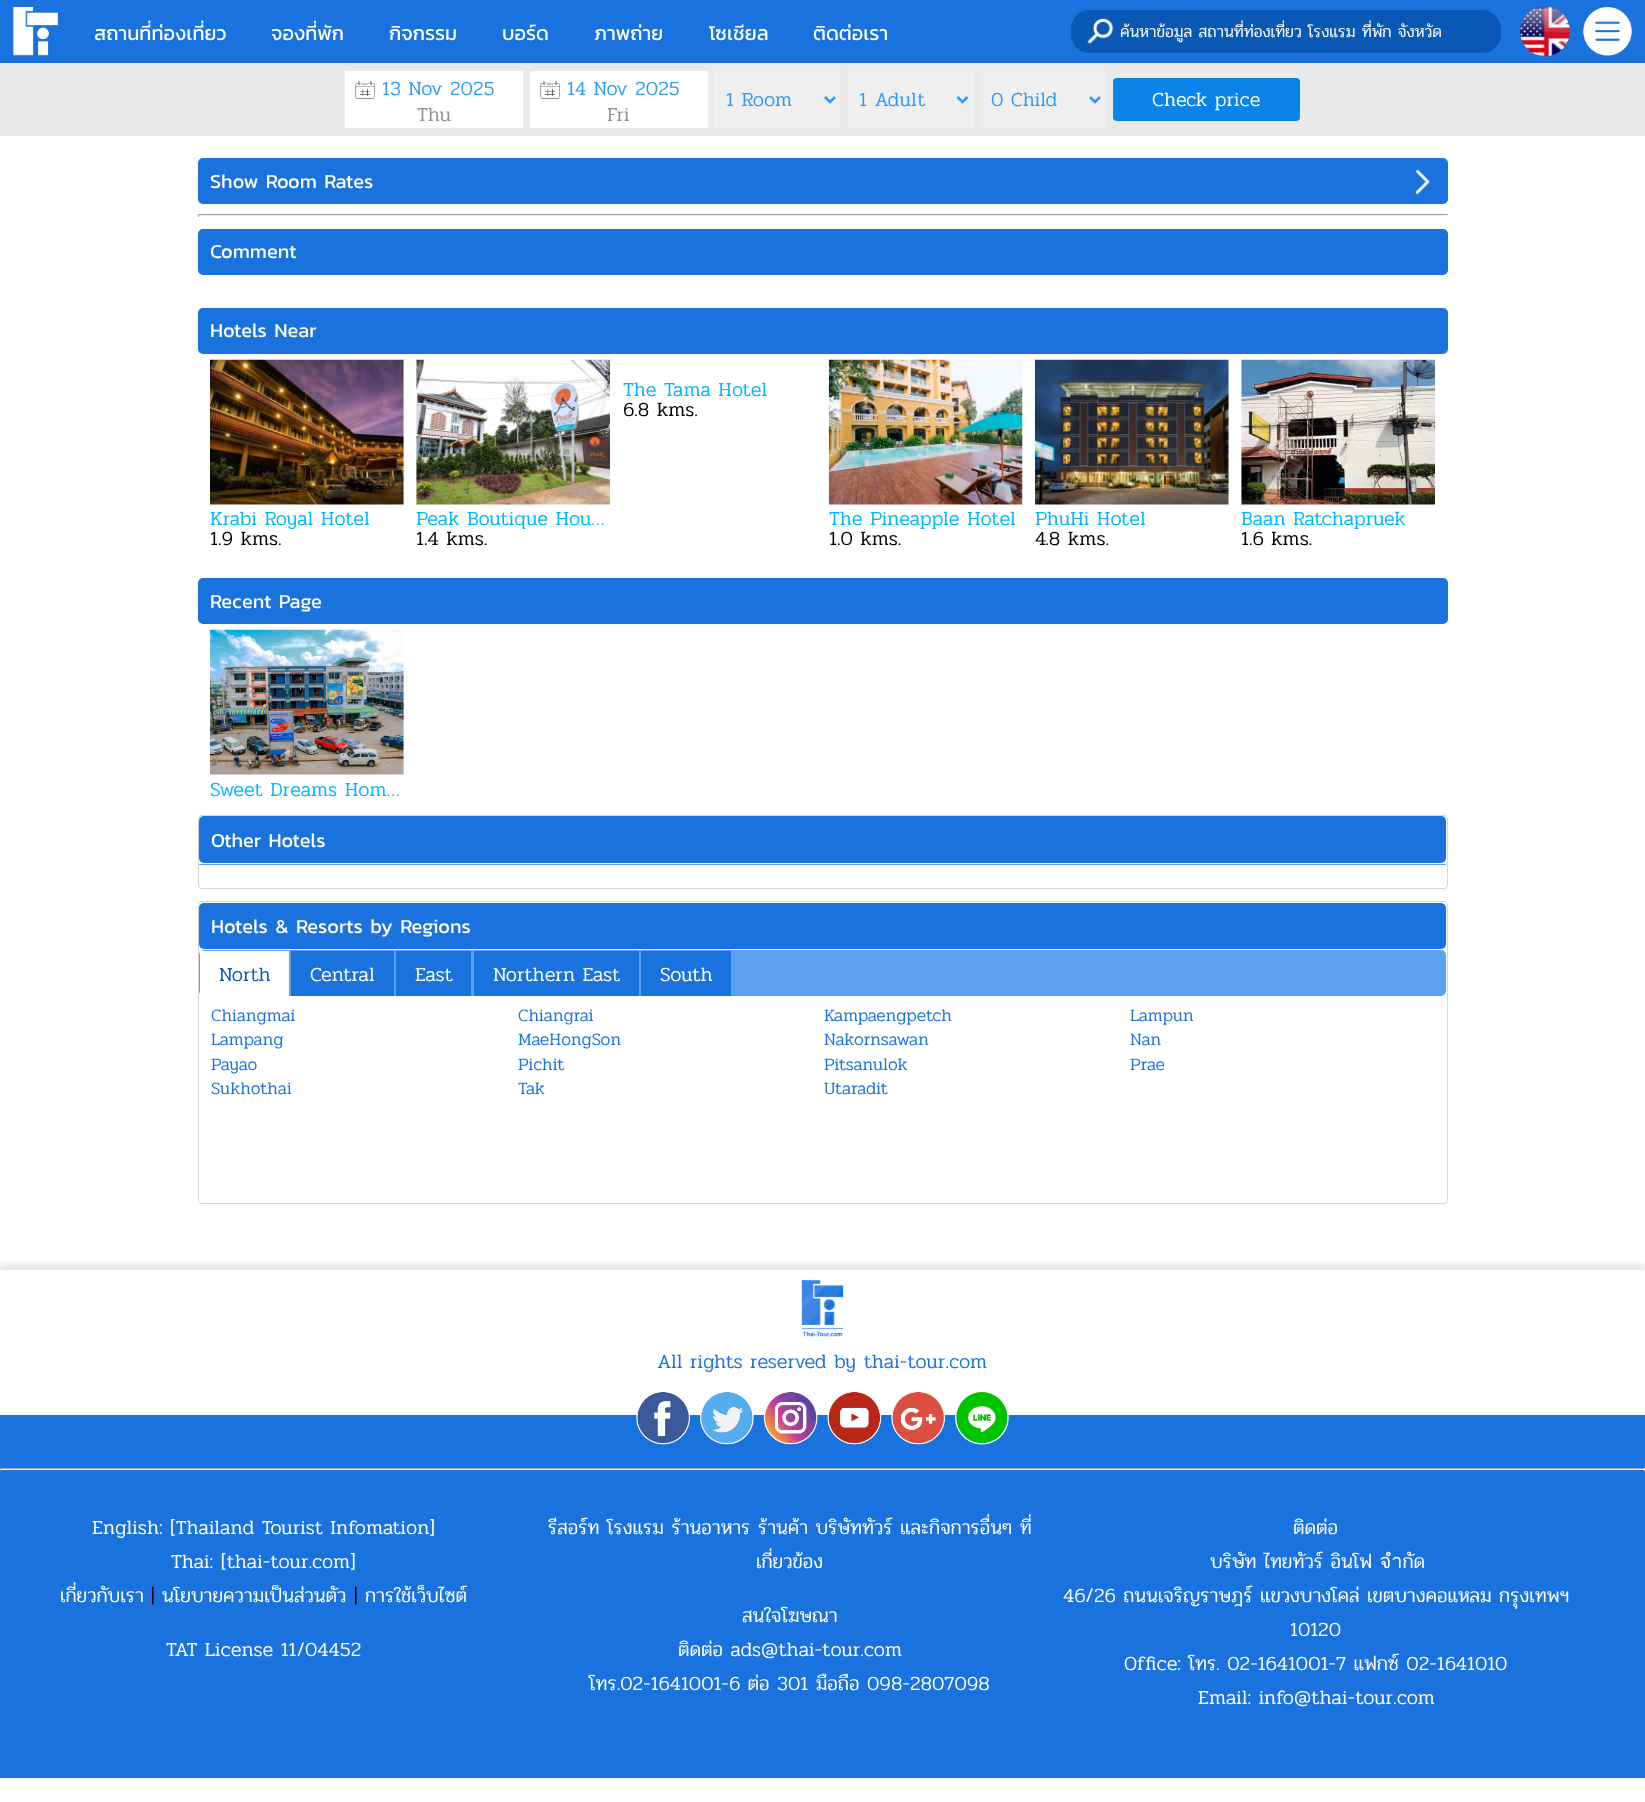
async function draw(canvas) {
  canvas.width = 1645;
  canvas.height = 1802;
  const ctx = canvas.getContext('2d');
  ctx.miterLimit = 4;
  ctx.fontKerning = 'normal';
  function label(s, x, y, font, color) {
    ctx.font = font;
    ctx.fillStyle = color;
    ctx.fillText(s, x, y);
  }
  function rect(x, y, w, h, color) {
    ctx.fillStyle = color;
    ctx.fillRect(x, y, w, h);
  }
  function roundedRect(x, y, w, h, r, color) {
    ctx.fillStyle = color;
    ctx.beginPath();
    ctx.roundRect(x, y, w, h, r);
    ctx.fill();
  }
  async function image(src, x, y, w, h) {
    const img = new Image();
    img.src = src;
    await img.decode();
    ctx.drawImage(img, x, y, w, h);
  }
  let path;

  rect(0, 0, 1645, 1802, '#fff');
  rect(0, 0, 1645, 63, '#1972dd');
  await image('assets/img1.png', 13, 6, 45, 50);
  label('สถานที่ท่องเที่ยว', 94, 40, '20px Kanit', '#fff');
  label('จองที่พัก', 271, 40, '20px Kanit', '#fff');
  label('กิจกรรม', 389, 40, '20px Kanit', '#fff');
  label('บอร์ด', 502, 40, '20px Kanit', '#fff');
  label('ภาพถ่าย', 594, 40, '20px Kanit', '#fff');
  label('โซเชียล', 709, 40, '20px Kanit', '#fff');
  label('ติดต่อเรา', 813, 40, '20px Kanit', '#fff');
  roundedRect(1071, 10, 430, 43, 19, '#0a58b5');
  await image('assets/img2.png', 1087, 18, 27, 26);
  ctx.beginPath();
  ctx.roundRect(1071.5, 10.5, 429, 42, 18.5);
  ctx.strokeStyle = '#0a58b5';
  ctx.stroke();
  ctx.save();
  ctx.beginPath();
  ctx.rect(1120, 19, 375, 26);
  ctx.clip();
  label('ค้นหาข้อมูล สถานที่ท่องเที่ยว โรงแรม ที่พัก จังหวัด', 1120, 37, '300 16.7px Pridi', '#fff');
  ctx.restore();
  await image('assets/img3.png', 1520, 6, 50, 51);
  await image('assets/img4.png', 1583, 7, 49, 49);
  rect(0, 63, 1645, 73, '#eaeaea');
  rect(345, 71, 178, 57, '#fff');
  await image('assets/img5.png', 355, 81, 20, 18);
  label('13 Nov 2025', 382, 95, '300 20px Pridi', '#2d9af7');
  label('Thu', 417, 121, '300 20px Pridi', '#929292');
  rect(530, 71, 178, 57, '#fff');
  await image('assets/img5.png', 540, 81, 20, 18);
  label('14 Nov 2025', 567, 95, '300 20px Pridi', '#2d9af7');
  label('Fri', 607, 121, '300 20px Pridi', '#929292');
  rect(715, 71, 125, 57, '#efefef');
  path = new Path2D('M825 97L830 102L835 97');
  ctx.strokeStyle = '#2d9af7';
  ctx.lineWidth = 2.5;
  ctx.stroke(path);
  label('1 Room', 726, 106, '300 20px Pridi', '#2d9af7');
  rect(848, 71, 125, 57, '#efefef');
  path = new Path2D('M957.5 97L962.5 102L967.5 97');
  ctx.stroke(path);
  label('1 Adult', 859, 106, '300 20px Pridi', '#2d9af7');
  rect(980, 71, 125, 57, '#efefef');
  path = new Path2D('M1090 97L1095 102L1100 97');
  ctx.stroke(path);
  label('0 Child', 991, 106, '300 20px Pridi', '#2d9af7');
  roundedRect(1113, 78, 187, 43, 4, '#0a83ea');
  label('Check price', 1152, 106, '300 20px Pridi', '#fff');
  roundedRect(198, 158, 1250, 46, 5, '#1972dd');
  label('Show Room Rates', 210, 188, '20px Kanit', '#fff');
  await image('assets/img6.png', 1415, 169, 15, 26);
  rect(198, 214, 1250, 1, '#9f9f9f');
  rect(1446, 214, 1, 3, '#eee');
  rect(198, 215, 1250, 1, '#eee');
  rect(198, 214, 1, 3, '#9f9f9f');
  roundedRect(198, 229, 1250, 46, 5, '#1972dd');
  label('Comment', 210, 258, '20px Kanit', '#fff');
  roundedRect(198, 308, 1250, 46, 5, '#1972dd');
  label('Hotels Near', 210, 337, '20px Kanit', '#fff');
  label('The Tama Hotel', 623, 396, '300 20px Pridi', '#00b6ff');
  label('6.8 kms.', 623, 416, '300 20px Pridi', '#000');
  await image('assets/img7.png', 210, 359, 194, 146);
  label('Krabi Royal Hotel', 210, 525, '300 20px Pridi', '#00b6ff');
  label('1.9 kms.', 210, 545, '300 20px Pridi', '#000');
  await image('assets/img8.png', 416, 359, 194, 146);
  ctx.save();
  ctx.beginPath();
  ctx.rect(416, 509, 194, 20);
  ctx.clip();
  label('Peak Boutique Hou…', 416, 525, '300 20px Pridi', '#00b6ff');
  ctx.restore();
  label('1.4 kms.', 416, 545, '300 20px Pridi', '#000');
  await image('assets/img9.png', 828, 359, 195, 146);
  ctx.save();
  ctx.beginPath();
  ctx.rect(829, 509, 194, 20);
  ctx.clip();
  label('The Pineapple Hotel', 829, 525, '300 20px Pridi', '#00b6ff');
  ctx.restore();
  label('1.0 kms.', 829, 545, '300 20px Pridi', '#000');
  await image('assets/img10.png', 1035, 359, 194, 146);
  label('PhuHi Hotel', 1035, 525, '300 20px Pridi', '#00b6ff');
  label('4.8 kms.', 1035, 545, '300 20px Pridi', '#000');
  await image('assets/img11.png', 1241, 359, 194, 146);
  ctx.save();
  ctx.beginPath();
  ctx.rect(1241, 509, 194, 20);
  ctx.clip();
  label('Baan Ratchapruek', 1241, 525, '300 20px Pridi', '#00b6ff');
  ctx.restore();
  label('1.6 kms.', 1241, 545, '300 20px Pridi', '#000');
  roundedRect(198, 578, 1250, 46, 5, '#1972dd');
  label('Recent Page', 210, 608, '20px Kanit', '#fff');
  await image('assets/img12.png', 210, 629, 194, 146);
  label('Sweet Dreams Hom…', 210, 796, '300 20px Pridi', '#00b6ff');
  ctx.beginPath();
  ctx.roundRect(198.5, 815.5, 1249, 73, 3.5);
  ctx.strokeStyle = '#d6d6d6';
  ctx.lineWidth = 1;
  ctx.stroke();
  roundedRect(199, 816, 1247, 47, 5, '#1972dd');
  label('Other Hotels', 211, 847, '20px Kanit', '#fff');
  roundedRect(199, 864, 1247, 1, 0.5, '#5fa1f1');
  ctx.beginPath();
  ctx.roundRect(198.5, 901.5, 1249, 302, 3.5);
  ctx.stroke();
  roundedRect(199, 903, 1247, 46, 5, '#1972dd');
  label('Hotels & Resorts by Regions', 211, 933, '20px Kanit', '#fff');
  roundedRect(199, 950, 1247, 46, 5, '#5fa1f1');
  rect(200, 951, 89, 45, '#fff');
  label('North', 219, 981, '300 20px Pridi', '#0a58b5');
  rect(291, 951, 103, 45, '#1972dd');
  label('Central', 310, 981, '300 20px Pridi', '#fff');
  rect(396, 951, 75, 45, '#1972dd');
  label('East', 415, 981, '300 20px Pridi', '#fff');
  rect(474, 951, 165, 45, '#1972dd');
  label('Northern East', 493, 981, '300 20px Pridi', '#fff');
  rect(641, 951, 90, 45, '#1972dd');
  label('South', 660, 981, '300 20px Pridi', '#fff');
  label('Chiangmai', 211, 1021, '300 17.5px Pridi', '#1972dd');
  label('Chiangrai', 518, 1021, '300 17.5px Pridi', '#1972dd');
  label('Kampaengpetch', 824, 1021, '300 17.5px Pridi', '#1972dd');
  label('Lampun', 1130, 1021, '300 17.5px Pridi', '#1972dd');
  label('Lampang', 211, 1045, '300 17.5px Pridi', '#1972dd');
  label('MaeHongSon', 518, 1045, '300 17.5px Pridi', '#1972dd');
  label('Nakornsawan', 824, 1045, '300 17.5px Pridi', '#1972dd');
  label('Nan', 1130, 1045, '300 17.5px Pridi', '#1972dd');
  label('Payao', 211, 1070, '300 17.5px Pridi', '#1972dd');
  label('Pichit', 518, 1070, '300 17.5px Pridi', '#1972dd');
  label('Pitsanulok', 824, 1070, '300 17.5px Pridi', '#1972dd');
  label('Prae', 1130, 1070, '300 17.5px Pridi', '#1972dd');
  label('Sukhothai', 211, 1094, '300 17.5px Pridi', '#1972dd');
  label('Tak', 518, 1094, '300 17.5px Pridi', '#1972dd');
  label('Utaradit', 824, 1094, '300 17.5px Pridi', '#1972dd');
  ctx.save();
  ctx.beginPath();
  ctx.rect(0, 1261, 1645, 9);
  ctx.clip();
  ctx.fillStyle = '#0000001a';
  ctx.filter = 'blur(3px)';
  ctx.beginPath();
  ctx.rect(0, 1264, 1645, 507);
  ctx.fill();
  ctx.filter = 'none';
  ctx.restore();
  await image('assets/img13.png', 801, 1279, 43, 58);
  label('All rights reserved by thai-tour.com', 657, 1368, '300 20px Pridi', '#1972dd');
  rect(0, 1415, 1645, 363, '#1972dd');
  await image('assets/img14.png', 636, 1392, 54, 53);
  await image('assets/img15.png', 700, 1392, 54, 53);
  await image('assets/img16.png', 763, 1392, 55, 53);
  await image('assets/img17.png', 827, 1392, 55, 53);
  await image('assets/img18.png', 891, 1392, 54, 53);
  await image('assets/img19.png', 955, 1392, 54, 53);
  rect(0, 1468, 1645, 1, '#9f9f9f');
  rect(1644, 1468, 1, 3, '#eee');
  rect(0, 1469, 1645, 1, '#eee');
  rect(0, 1468, 1, 3, '#9f9f9f');
  label('English: [Thailand Tourist Infomation]', 92, 1534, '300 20px Pridi', '#fff');
  label('Thai: [thai-tour.com]', 171, 1568, '300 20px Pridi', '#fff');
  label('เกี่ยวกับเรา', 60, 1602, '300 20px Pridi', '#fff');
  label('|', 151, 1602, '300 20px Pridi', '#000');
  label('นโยบายความเป็นส่วนตัว', 162, 1602, '300 20px Pridi', '#fff');
  label('|', 354, 1602, '300 20px Pridi', '#000');
  label('การใช้เว็บไซต์', 365, 1602, '300 20px Pridi', '#fff');
  label('TAT License 11/04452', 166, 1656, '300 20px Pridi', '#fff');
  label('รีสอร์ท โรงแรม ร้านอาหาร ร้านค้า บริษัททัวร์ และกิจการอื่นๆ ที่', 548, 1534, '300 20px Pridi', '#fff');
  label('เกี่ยวข้อง', 756, 1568, '300 20px Pridi', '#fff');
  label('สนใจโฆษณา', 742, 1622, '300 20px Pridi', '#fff');
  label('ติดต่อ ads@thai-tour.com', 678, 1656, '300 20px Pridi', '#fff');
  label('โทร.02-1641001-6 ต่อ 301 มือถือ 098-2807098', 589, 1690, '300 20px Pridi', '#fff');
  label('ติดต่อ', 1293, 1534, '300 20px Pridi', '#fff');
  label('บริษัท ไทยทัวร์ อินโฟ จำกัด', 1210, 1568, '300 20px Pridi', '#fff');
  label('46/26 ถนนเจริญราษฎร์ แขวงบางโคล่ เขตบางคอแหลม กรุงเทพฯ', 1063, 1602, '300 20px Pridi', '#fff');
  label('10120', 1290, 1636, '300 20px Pridi', '#fff');
  label('Office: โทร. 02-1641001-7 แฟกซ์ 02-1641010', 1124, 1670, '300 20px Pridi', '#fff');
  label('Email: info@thai-tour.com', 1198, 1704, '300 20px Pridi', '#fff');
}

draw(document.querySelector('canvas'));
